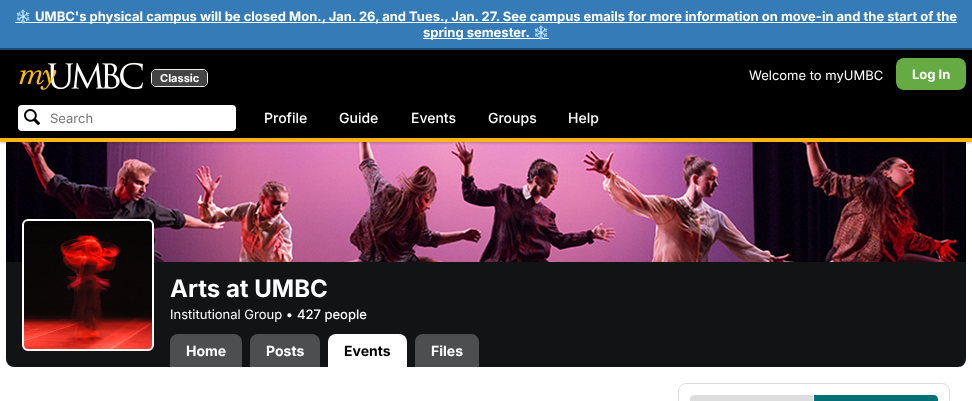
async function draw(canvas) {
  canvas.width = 972;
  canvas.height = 401;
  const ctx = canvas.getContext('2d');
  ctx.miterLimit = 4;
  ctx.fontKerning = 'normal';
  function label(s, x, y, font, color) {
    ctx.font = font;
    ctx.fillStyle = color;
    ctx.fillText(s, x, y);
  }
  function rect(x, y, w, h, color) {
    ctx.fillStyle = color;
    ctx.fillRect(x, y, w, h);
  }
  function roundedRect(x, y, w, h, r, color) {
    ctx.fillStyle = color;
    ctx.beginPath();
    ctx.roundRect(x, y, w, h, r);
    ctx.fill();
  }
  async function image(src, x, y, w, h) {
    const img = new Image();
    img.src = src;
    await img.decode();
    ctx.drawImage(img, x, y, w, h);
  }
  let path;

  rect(0, 0, 972, 401, '#fff');
  rect(0, 0, 972, 48, '#357bb8');
  rect(0, 48, 972, 2, '#204b70');
  rect(15, 22, 942, 1, '#fff');
  label('❄️', 15, 21, 'bold 13px Noto Color Emoji', '#fff');
  label('UMBC\'s physical campus will be closed Mon., Jan. 26, and Tues., Jan. 27. See campus emails for more information on move-in and the start of the', 35, 21, 'bold 13px Inter', '#fff');
  rect(423, 38, 126, 1, '#fff');
  label('spring semester.', 423, 37, 'bold 13px Inter', '#fff');
  label('❄️', 533, 37, 'bold 13px Noto Color Emoji', '#fff');
  await image('assets/img3.png', 6, 142, 960, 120);
  ctx.fillStyle = '#0000003d';
  ctx.filter = 'blur(1px)';
  ctx.beginPath();
  ctx.rect(0, 51, 972, 92);
  ctx.fill();
  ctx.filter = 'none';
  rect(0, 50, 972, 88, '#000');
  rect(0, 138, 972, 4, '#fdb515');
  await image('assets/img1.png', 19, 62, 124, 28);
  ctx.beginPath();
  ctx.roundRect(151.5, 69.5, 56, 17, 4.5);
  ctx.strokeStyle = '#f0f0f0';
  ctx.stroke();
  roundedRect(152, 70, 55, 16, 4, '#444');
  label('Classic', 160, 82, 'bold 11px Inter', '#fff');
  label('Welcome to myUMBC', 749, 80, '13px Inter', '#fff');
  roundedRect(896, 58, 70, 32, 8, '#6a4');
  label('Log In', 912, 79, 'bold 13px Inter', '#fff');
  roundedRect(18, 105, 218, 26, 4, '#fff');
  await image('assets/img2.png', 24, 109, 16, 16);
  label('Search', 50, 123, '13px Inter', '#757575');
  label('Profile', 264, 123, '500 14px Inter', '#fff');
  label('Guide', 339, 123, '500 14px Inter', '#fff');
  label('Events', 411, 123, '500 14px Inter', '#fff');
  label('Groups', 488, 123, '500 14px Inter', '#fff');
  label('Help', 568, 123, '500 14px Inter', '#fff');
  rect(6, 262, 960, 66, '#111315');
  ctx.beginPath();
  ctx.roundRect(6, 328, 960, 39, [0, 0, 8, 8]);
  ctx.fill();
  await image('assets/img4.png', 24, 221, 128, 128);
  ctx.beginPath();
  ctx.roundRect(23, 220, 130, 130, 5);
  ctx.strokeStyle = '#fff';
  ctx.lineWidth = 2;
  ctx.stroke();
  label('Arts at UMBC', 170, 297, 'bold 24px Inter', '#fff');
  label('Institutional Group •', 170, 319, '13px Inter', '#fff');
  label('427 people', 297, 319, '500 13px Inter', '#fff');
  ctx.fillStyle = '#4d4e50';
  ctx.beginPath();
  ctx.roundRect(170, 334, 72, 33, [8, 8, 0, 0]);
  ctx.fill();
  label('Home', 186, 356, 'bold 14px Inter', '#fff');
  ctx.fillStyle = '#4d4e50';
  ctx.beginPath();
  ctx.roundRect(250, 334, 70, 33, [8, 8, 0, 0]);
  ctx.fill();
  label('Posts', 266, 356, 'bold 14px Inter', '#fff');
  ctx.beginPath();
  ctx.roundRect(328, 334, 79, 33, [8, 8, 0, 0]);
  ctx.fill();
  label('Events', 344, 356, 'bold 14px Inter', '#000');
  ctx.fillStyle = '#4d4e50';
  ctx.beginPath();
  ctx.roundRect(415, 334, 64, 33, [8, 8, 0, 0]);
  ctx.fill();
  label('Files', 431, 356, 'bold 14px Inter', '#fff');
  ctx.fillStyle = '#ddd';
  path = new Path2D('M686 383H942C946 383 950 387 950 391V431H678V391C678 387 682 383 686 383ZM686 384H942C946 384 949 387 949 391V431H679V391C679 387 682 384 686 384Z');
  ctx.fill(path, 'evenodd');
  path = new Path2D('M694 395H814V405H694C692 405 690 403 690 401V399C690 397 692 395 694 395Z');
  ctx.fill(path);
  rect(813, 395, 1, 6, '#fff');
  ctx.fillStyle = '#007176';
  path = new Path2D('M814 395H934C936 395 938 397 938 399V401C938 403 936 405 934 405H814Z');
  ctx.fill(path);
}

draw(document.querySelector('canvas'));
